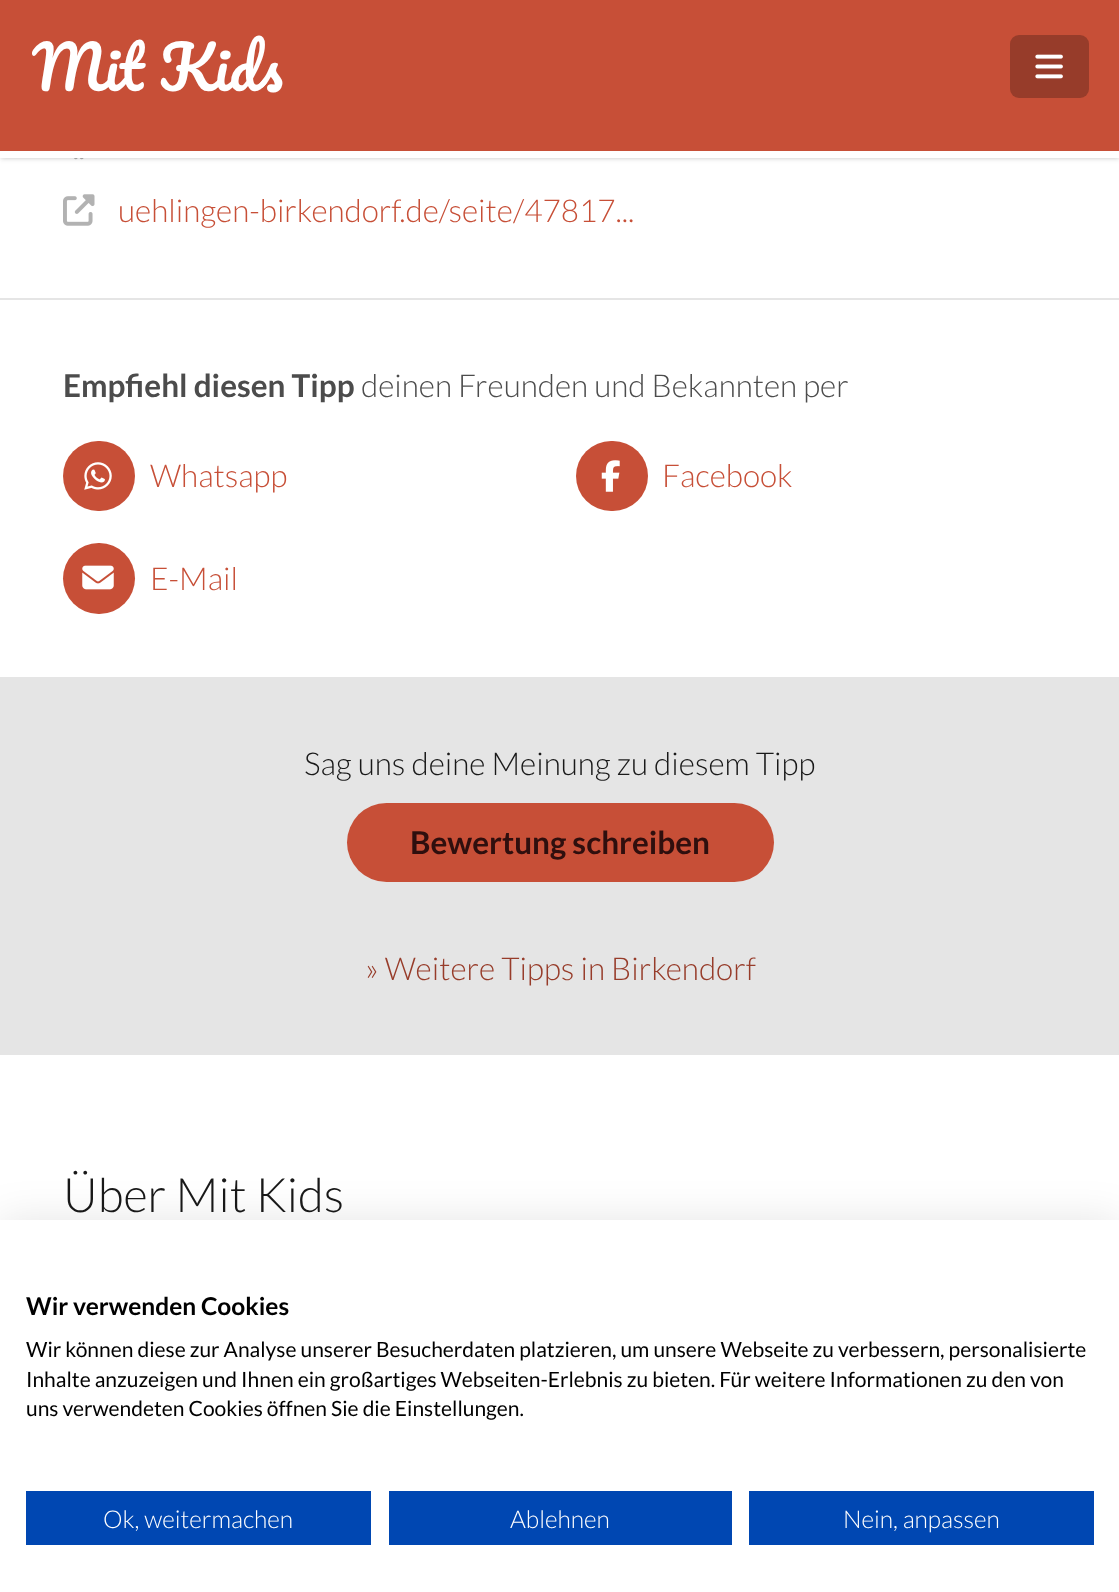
async function draw(canvas) {
  canvas.width = 1119;
  canvas.height = 1592;
  const ctx = canvas.getContext('2d');
  ctx.miterLimit = 4;
  ctx.fontKerning = 'normal';
  function label(s, x, y, font, color) {
    ctx.font = font;
    ctx.fillStyle = color;
    ctx.fillText(s, x, y);
  }
  function rect(x, y, w, h, color) {
    ctx.fillStyle = color;
    ctx.fillRect(x, y, w, h);
  }
  function roundedRect(x, y, w, h, r, color) {
    ctx.fillStyle = color;
    ctx.beginPath();
    ctx.roundRect(x, y, w, h, r);
    ctx.fill();
  }
  async function image(src, x, y, w, h) {
    const img = new Image();
    img.src = src;
    await img.decode();
    ctx.drawImage(img, x, y, w, h);
  }

  rect(0, 0, 1119, 1592, '#fff');
  await image('assets/img2.png', 74, 158, 10, 2);
  ctx.fillStyle = '#0000001a';
  ctx.filter = 'blur(2px)';
  ctx.beginPath();
  ctx.rect(2, 4, 1116, 154);
  ctx.fill();
  ctx.filter = 'none';
  ctx.filter = 'blur(2.5px)';
  ctx.beginPath();
  ctx.rect(0, 2, 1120, 157);
  ctx.fill();
  ctx.filter = 'none';
  rect(0, 0, 1119, 151, '#c74f37');
  rect(0, 151, 1119, 7, '#fff');
  ctx.save();
  ctx.beginPath();
  ctx.rect(32, 0, 1057, 135);
  ctx.clip();
  label('Mit Kids', 32, 91, '59px Pacifico', '#fff');
  ctx.restore();
  roundedRect(1010, 35, 79, 63, 9, '#973c2a');
  await image('assets/img1.png', 1035, 54, 28, 25);
  rect(0, 677, 1119, 378, '#e5e5e5');
  await image('assets/img3.png', 63, 194, 32, 32);
  label('uehlingen-birkendorf.de/seite/47817...', 118, 222, '300 31.5px Lato', '#c74f37');
  rect(0, 298, 1119, 2, '#e5e5e5');
  label('Empfiehl diesen Tipp', 63, 397, 'bold 31.5px Lato', '#4c4c4c');
  label('deinen Freunden und Bekannten per', 361, 397, '300 31.5px Lato', '#4c4c4c');
  roundedRect(63, 441, 72, 70, 35, '#c74f37');
  await image('assets/img4.png', 84, 462, 28, 28);
  label('Whatsapp', 150, 487, '300 31.5px Lato', '#c74f37');
  roundedRect(576, 441, 72, 70, 35, '#c74f37');
  await image('assets/img5.png', 601, 460, 19, 32);
  label('Facebook', 662, 487, '300 31.5px Lato', '#c74f37');
  roundedRect(63, 543, 72, 71, 35.5, '#c74f37');
  await image('assets/img6.png', 82, 565, 32, 25);
  label('E-Mail', 150, 590, '300 31.5px Lato', '#c74f37');
  label('Sag uns deine Meinung zu diesem Tipp', 304, 775, '300 31.5px Lato', '#191919');
  roundedRect(347, 803, 427, 79, 39.5, '#c74f37');
  label('Bewertung schreiben', 410, 854, 'bold 31.5px Lato', '#2f0f0e');
  label('» Weitere Tipps in Birkendorf', 365, 980, '300 31.5px Lato', '#973c2a');
  label('Über Mit Kids', 63, 1212, '300 47.25px Lato', '#191919');
  ctx.fillStyle = '#0000001a';
  ctx.filter = 'blur(21px)';
  ctx.beginPath();
  ctx.rect(0, 1220, 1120, 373);
  ctx.fill();
  ctx.filter = 'none';
  rect(0, 1220, 1119, 372, '#fff');
  label('Wir verwenden Cookies', 26, 1315, 'bold 24.5px Lato', '#000');
  label('Wir können diese zur Analyse unserer Besucherdaten platzieren, um unsere Webseite zu verbessern, personalisierte', 26, 1357, '21px Lato', '#000');
  label('Inhalte anzuzeigen und Ihnen ein großartiges Webseiten-Erlebnis zu bieten. Für weitere Informationen zu den von', 26, 1387, '21px Lato', '#000');
  label('uns verwendeten Cookies öffnen Sie die Einstellungen.', 26, 1416, '21px Lato', '#000');
  rect(26, 1491, 345, 54, '#0047b2');
  label('Ok, weitermachen', 103, 1528, '300 24.5px Lato', '#fff');
  rect(389, 1491, 343, 54, '#0047b2');
  label('Ablehnen', 510, 1528, '300 24.5px Lato', '#fff');
  rect(749, 1491, 345, 54, '#0047b2');
  label('Nein, anpassen', 843, 1528, '300 24.5px Lato', '#fff');
}

draw(document.querySelector('canvas'));
